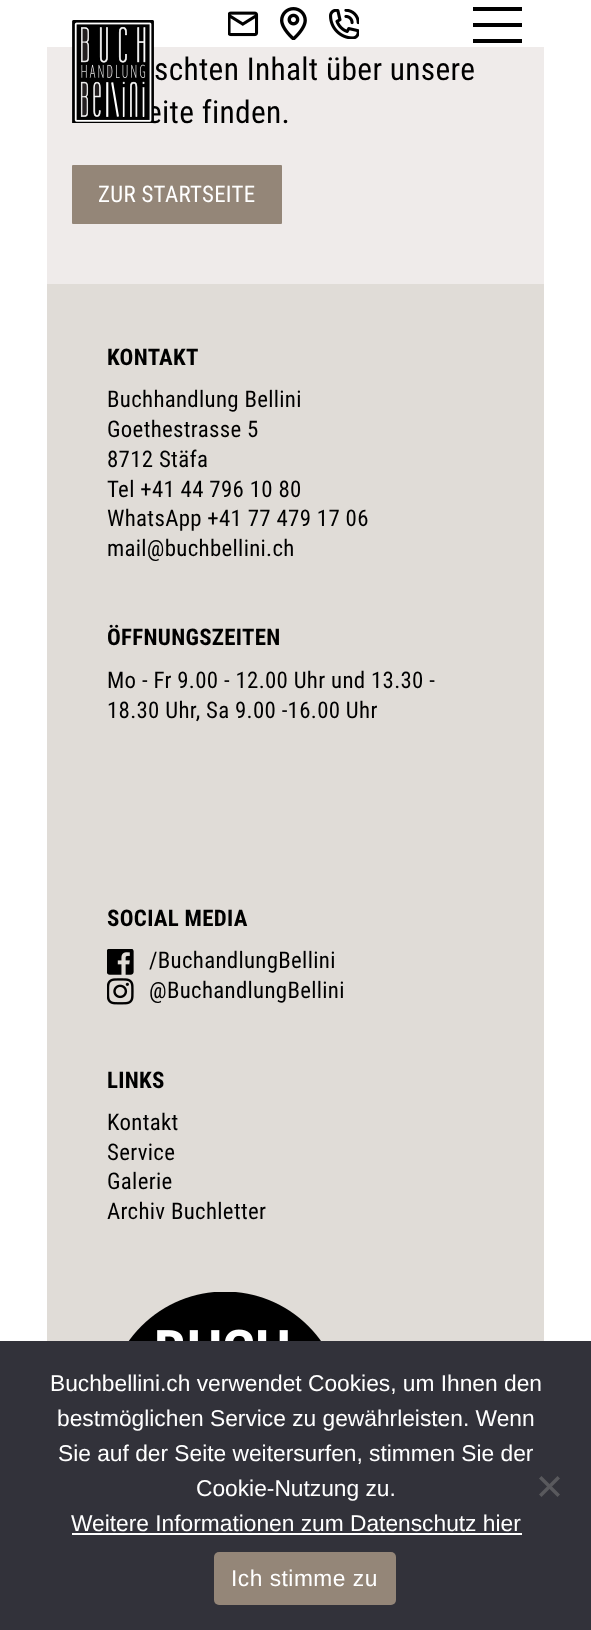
async function draw(canvas) {
  canvas.width = 591;
  canvas.height = 1630;
  const ctx = canvas.getContext('2d');
  ctx.miterLimit = 4;
  ctx.fontKerning = 'normal';
  function label(s, x, y, font, color) {
    ctx.font = font;
    ctx.fillStyle = color;
    ctx.fillText(s, x, y);
  }
  function rect(x, y, w, h, color) {
    ctx.fillStyle = color;
    ctx.fillRect(x, y, w, h);
  }
  function roundedRect(x, y, w, h, r, color) {
    ctx.fillStyle = color;
    ctx.beginPath();
    ctx.roundRect(x, y, w, h, r);
    ctx.fill();
  }
  async function image(src, x, y, w, h) {
    const img = new Image();
    img.src = src;
    await img.decode();
    ctx.drawImage(img, x, y, w, h);
  }
  let path;

  rect(0, 0, 591, 1630, '#fff');
  rect(47, 47, 497, 237, '#efebea');
  ctx.letterSpacing = '0.3px';
  label('eite finden.', 147, 123, '31.5px Roboto Condensed', '#000');
  await image('assets/img1.png', 72, 20, 82, 103);
  await image('assets/img2.png', 228, 11, 31, 26);
  await image('assets/img3.png', 280, 7, 27, 33);
  await image('assets/img4.png', 329, 9, 30, 30);
  rect(473, 7, 49, 4, '#000');
  rect(473, 23, 49, 4, '#000');
  rect(473, 39, 49, 4, '#000');
  label('schten Inhalt über unsere', 154, 80, '31.5px Roboto Condensed', '#000');
  roundedRect(72, 165, 210, 59, 1, '#948678');
  label('ZUR STARTSEITE', 98, 202, '22.9px Roboto Condensed', '#fff');
  rect(47, 284, 497, 1057, '#e0dcd7');
  label('KONTAKT', 107, 365, 'bold 22.9px Roboto Condensed', '#000');
  label('Buchhandlung Bellini', 107, 407, '22.9px Roboto Condensed', '#000');
  label('Goethestrasse 5', 107, 437, '22.9px Roboto Condensed', '#000');
  label('8712 Stäfa', 107, 467, '22.9px Roboto Condensed', '#000');
  label('Tel +41 44 796 10 80', 107, 497, '22.9px Roboto Condensed', '#000');
  label('WhatsApp +41 77 479 17 06', 107, 526, '22.9px Roboto Condensed', '#000');
  label('mail@buchbellini.ch', 107, 556, '22.9px Roboto Condensed', '#000');
  label('ÖFFNUNGSZEITEN', 107, 645, 'bold 22.9px Roboto Condensed', '#000');
  label('Mo - Fr 9.00 - 12.00 Uhr und 13.30 -', 107, 688, '22.9px Roboto Condensed', '#000');
  label('18.30 Uhr, Sa 9.00 -16.00 Uhr', 107, 718, '22.9px Roboto Condensed', '#000');
  label('SOCIAL MEDIA', 107, 926, 'bold 22.9px Roboto Condensed', '#000');
  await image('assets/img5.png', 107, 949, 27, 26);
  label('/BuchandlungBellini', 149, 968, '22.9px Roboto Condensed', '#000');
  await image('assets/img6.png', 107, 978, 27, 27);
  label('@BuchandlungBellini', 149, 998, '22.9px Roboto Condensed', '#000');
  label('LINKS', 107, 1088, 'bold 22.9px Roboto Condensed', '#000');
  label('Kontakt', 107, 1130, '22.9px Roboto Condensed', '#000');
  label('Service', 107, 1160, '22.9px Roboto Condensed', '#000');
  label('Galerie', 107, 1189, '22.9px Roboto Condensed', '#000');
  label('Archiv Buchletter', 107, 1219, '22.9px Roboto Condensed', '#000');
  await image('assets/img7.png', 128, 1292, 193, 49);
  rect(0, 1341, 591, 289, '#32323a');
  ctx.letterSpacing = '0px';
  label('Buchbellini.ch verwendet Cookies, um Ihnen den', 50, 1391, '22.75px Liberation Sans', '#fff');
  label('bestmöglichen Service zu gewährleisten. Wenn', 57, 1426, '22.75px Liberation Sans', '#fff');
  label('Sie auf der Seite weitersurfen, stimmen Sie der', 58, 1461, '22.75px Liberation Sans', '#fff');
  label('Cookie-Nutzung zu.', 196, 1496, '22.75px Liberation Sans', '#fff');
  label('Weitere Informationen zum Datenschutz hier', 71, 1531, '22.75px Liberation Sans', '#fff');
  rect(72, 1533, 450, 2, '#fff');
  ctx.fillStyle = '#59595d';
  path = new Path2D('M557.5 1476L560 1478.5L541.5 1497L539 1494.5Z');
  ctx.fill(path);
  path = new Path2D('M539 1478.5L541.5 1476L560 1494.5L557.5 1497Z');
  ctx.fill(path);
  roundedRect(214, 1552, 182, 53, 5, '#948678');
  ctx.letterSpacing = '0.5px';
  label('Ich stimme zu', 231, 1586, '22.75px Liberation Sans', '#fff');
}

draw(document.querySelector('canvas'));
